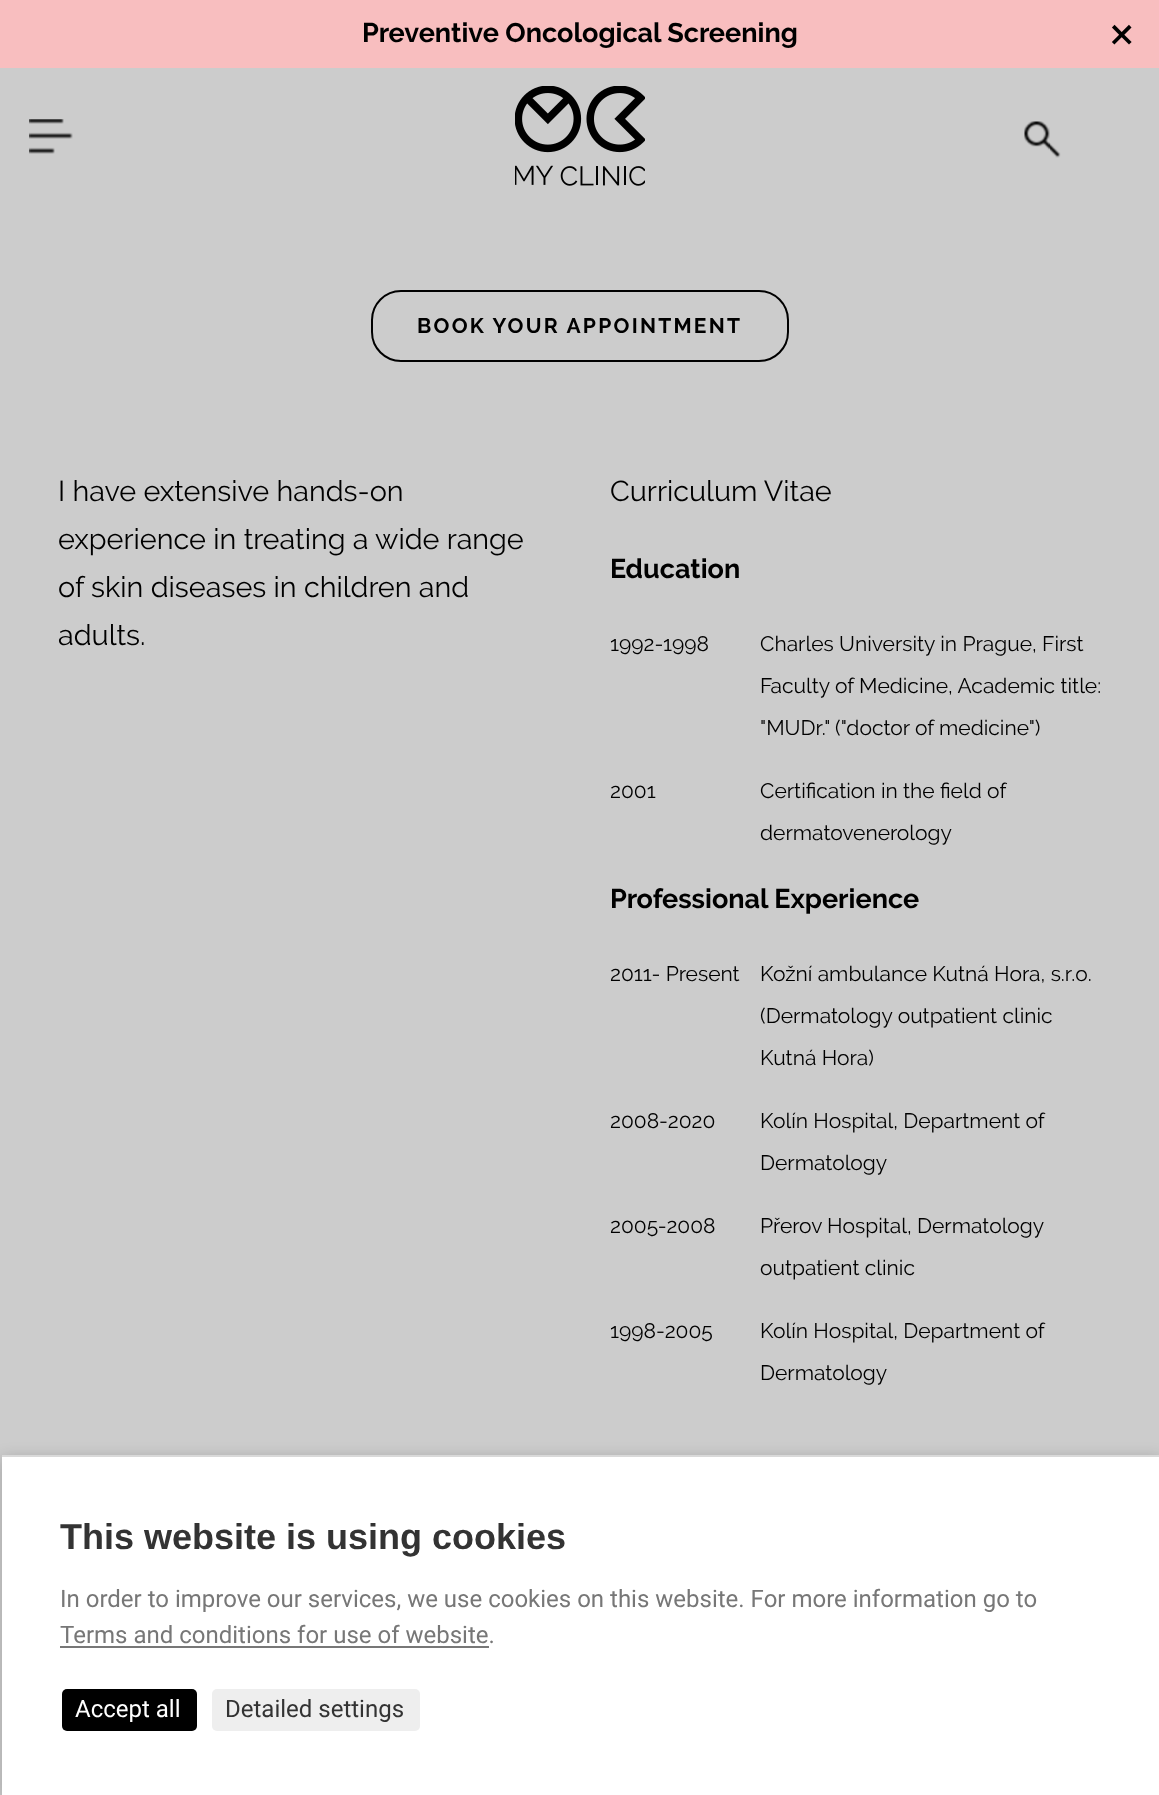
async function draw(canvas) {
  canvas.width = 1159;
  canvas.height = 1795;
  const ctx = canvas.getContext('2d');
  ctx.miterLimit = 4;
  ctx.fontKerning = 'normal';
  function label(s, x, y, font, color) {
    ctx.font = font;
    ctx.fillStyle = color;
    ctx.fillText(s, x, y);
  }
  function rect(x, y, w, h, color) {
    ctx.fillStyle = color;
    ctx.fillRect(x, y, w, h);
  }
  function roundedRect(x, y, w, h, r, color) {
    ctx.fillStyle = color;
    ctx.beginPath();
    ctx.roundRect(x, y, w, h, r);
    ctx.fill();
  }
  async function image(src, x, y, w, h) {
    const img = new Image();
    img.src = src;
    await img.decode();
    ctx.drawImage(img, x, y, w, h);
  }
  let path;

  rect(0, 0, 1159, 1795, '#ccc');
  rect(0, 0, 1159, 68, '#f8bebf');
  label('Preventive Oncological Screening', 362, 42, 'bold 27px Raleway', '#000');
  label('×', 1108, 51, '60px Raleway', '#000');
  await image('assets/img1.png', 29, 119, 44, 35);
  await image('assets/img2.png', 515, 86, 130, 100);
  await image('assets/img3.png', 1024, 121, 37, 37);
  ctx.beginPath();
  ctx.roundRect(372, 291, 416, 70, 29);
  ctx.strokeStyle = '#000';
  ctx.lineWidth = 2;
  ctx.stroke();
  ctx.letterSpacing = '2.25px';
  label('BOOK YOUR APPOINTMENT', 417, 333, 'bold 21px Raleway', '#000');
  ctx.letterSpacing = '0px';
  label('I have extensive hands-on', 58, 501, '28.75px Raleway', '#000');
  label('experience in treating a wide range', 58, 549, '28.75px Raleway', '#000');
  label('of skin diseases in children and', 58, 597, '28.75px Raleway', '#000');
  label('adults.', 58, 645, '28.75px Raleway', '#000');
  label('Curriculum Vitae', 610, 501, '28.75px Raleway', '#000');
  label('Education', 610, 578, 'bold 27px Raleway', '#000');
  label('1992-1998', 610, 651, '21px Raleway', '#000');
  label('Charles University in Prague, First', 760, 651, '21px Raleway', '#000');
  label('Faculty of Medicine, Academic title:', 760, 693, '21px Raleway', '#000');
  label('"MUDr." ("doctor of medicine")', 760, 735, '21px Raleway', '#000');
  label('2001', 610, 798, '21px Raleway', '#000');
  label('Certification in the field of', 760, 798, '21px Raleway', '#000');
  label('dermatovenerology', 760, 840, '21px Raleway', '#000');
  label('Professional Experience', 610, 908, 'bold 27px Raleway', '#000');
  label('2011- Present', 610, 981, '21px Raleway', '#000');
  label('Kožní ambulance Kutná Hora, s.r.o.', 760, 981, '21px Raleway', '#000');
  label('(Dermatology outpatient clinic', 760, 1023, '21px Raleway', '#000');
  label('Kutná Hora)', 760, 1065, '21px Raleway', '#000');
  label('2008-2020', 610, 1128, '21px Raleway', '#000');
  label('Kolín Hospital, Department of', 760, 1128, '21px Raleway', '#000');
  label('Dermatology', 760, 1170, '21px Raleway', '#000');
  label('2005-2008', 610, 1233, '21px Raleway', '#000');
  label('Přerov Hospital, Dermatology', 760, 1233, '21px Raleway', '#000');
  label('outpatient clinic', 760, 1275, '21px Raleway', '#000');
  label('1998-2005', 610, 1338, '21px Raleway', '#000');
  label('Kolín Hospital, Department of', 760, 1338, '21px Raleway', '#000');
  label('Dermatology', 760, 1380, '21px Raleway', '#000');
  ctx.save();
  path = new Path2D('M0 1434H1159V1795H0ZM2 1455H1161V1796H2Z');
  ctx.clip(path, 'evenodd');
  ctx.fillStyle = '#00000033';
  ctx.filter = 'blur(7.5px)';
  ctx.beginPath();
  ctx.rect(2, 1458, 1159, 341);
  ctx.fill();
  ctx.filter = 'none';
  ctx.restore();
  rect(2, 1457, 1157, 338, '#fff');
  rect(2, 1455, 1157, 2, '#d9d9d9');
  label('This website is using cookies', 60, 1549, 'bold 36px Liberation Sans', '#333');
  label('In order to improve our services, we use cookies on this website. For more information go to', 60, 1607, '24px Roboto', '#777');
  label('Terms and conditions for use of website.', 60, 1643, '24px Roboto', '#777');
  rect(60, 1646, 429, 2, '#777');
  roundedRect(62, 1689, 135, 42, 5, '#000');
  label('Accept all', 75, 1717, '24px Roboto', '#fff');
  roundedRect(212, 1689, 208, 42, 5, '#eee');
  label('Detailed settings', 225, 1717, '24px Roboto', '#333');
}

draw(document.querySelector('canvas'));
